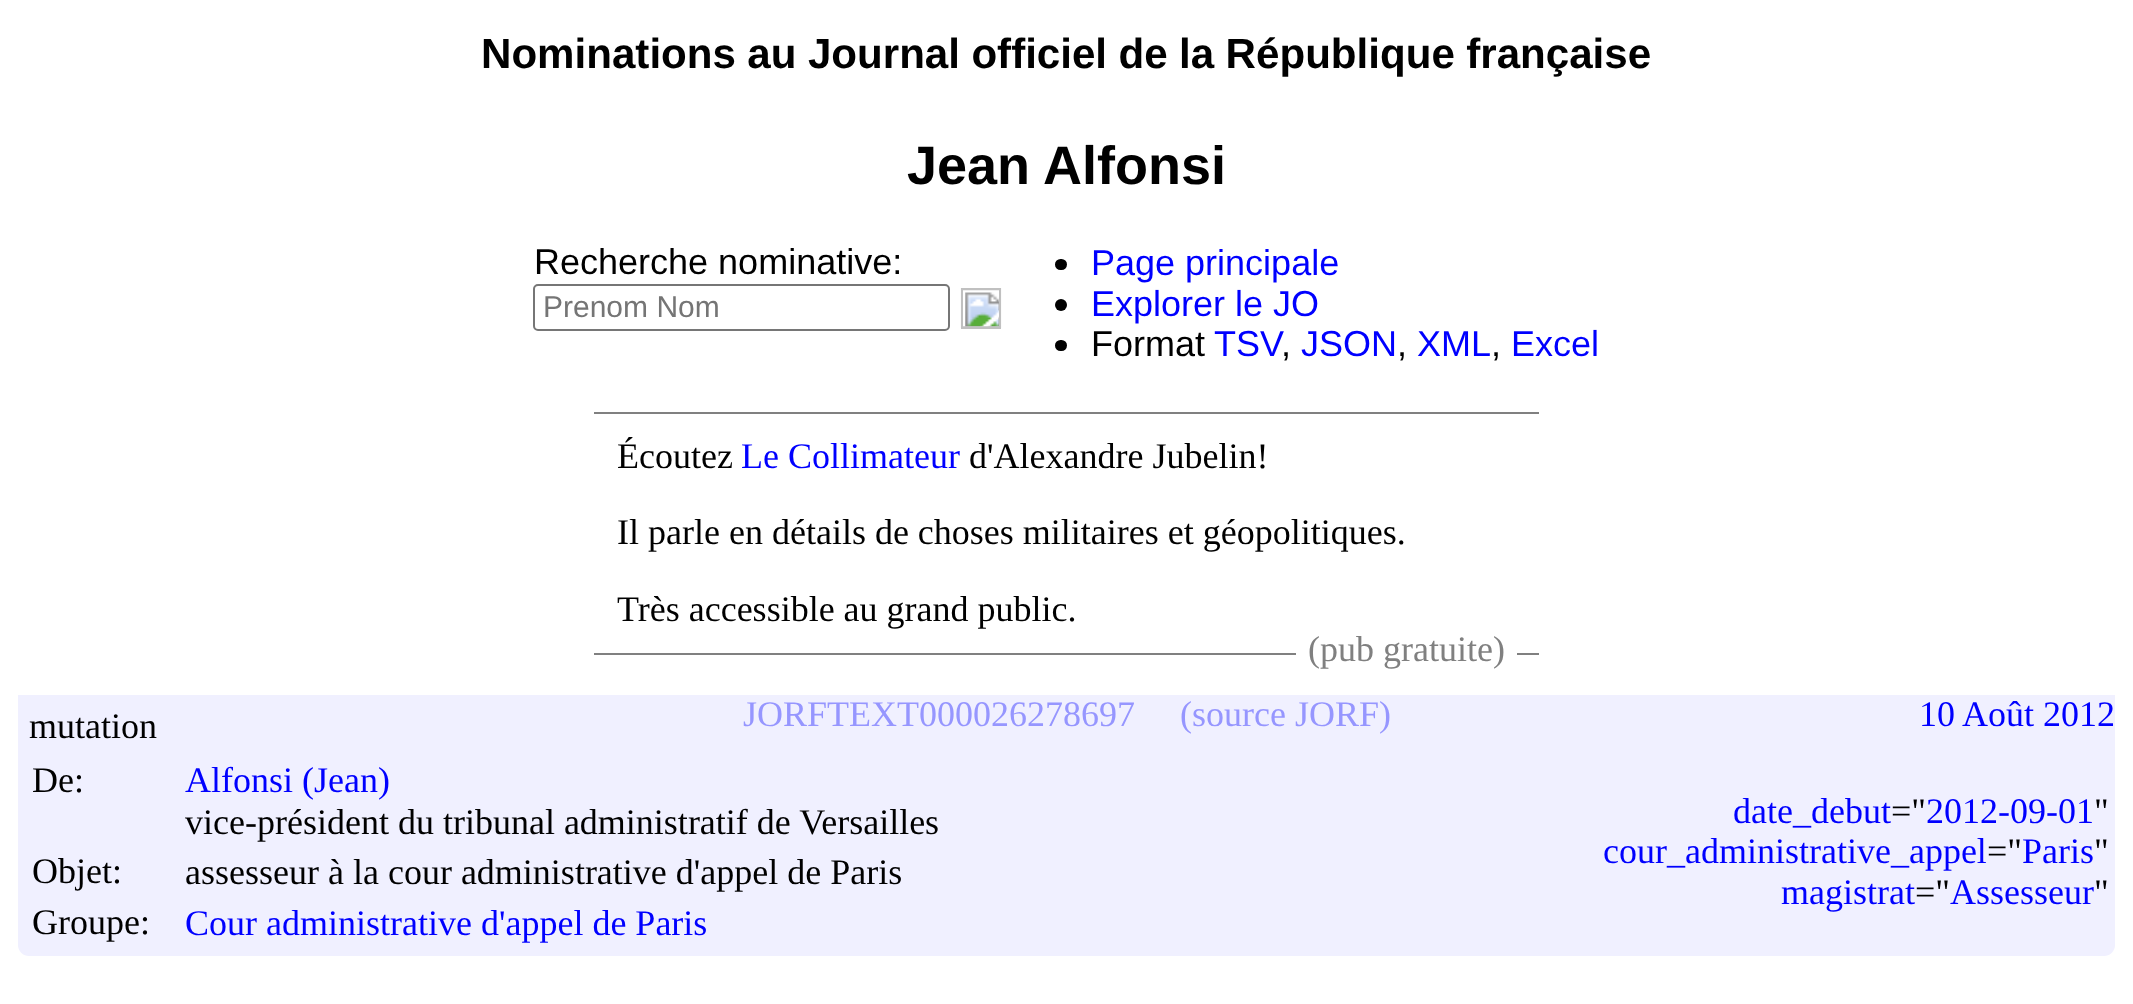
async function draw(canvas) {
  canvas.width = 2133;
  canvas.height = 1004;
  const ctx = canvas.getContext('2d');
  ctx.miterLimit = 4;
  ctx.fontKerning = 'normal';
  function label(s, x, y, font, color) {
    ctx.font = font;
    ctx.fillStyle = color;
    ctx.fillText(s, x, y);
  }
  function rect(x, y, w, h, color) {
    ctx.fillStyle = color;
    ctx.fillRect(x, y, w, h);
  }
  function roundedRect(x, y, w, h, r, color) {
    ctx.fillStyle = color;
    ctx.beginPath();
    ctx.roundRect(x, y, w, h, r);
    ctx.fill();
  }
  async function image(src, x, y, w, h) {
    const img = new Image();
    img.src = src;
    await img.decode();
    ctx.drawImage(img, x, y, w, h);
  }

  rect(0, 0, 2133, 1004, '#fff');
  ctx.wordSpacing = '-0.25px';
  label('Nominations au Journal officiel de la République française', 481, 68, 'bold 42.1px Liberation Sans', '#000');
  ctx.wordSpacing = '0px';
  label('Jean Alfonsi', 907, 184, 'bold 54px Liberation Sans', '#000');
  label('Recherche nominative:', 534, 274, '36px Liberation Sans', '#000');
  ctx.beginPath();
  ctx.roundRect(534, 285, 415, 45, 4);
  ctx.strokeStyle = '#767676';
  ctx.lineWidth = 2;
  ctx.stroke();
  label('Prenom Nom', 543, 317, '30px Liberation Sans', '#757575');
  await image('assets/img1.png', 960, 288, 42, 40);
  ctx.strokeStyle = '#c0c0c0';
  ctx.strokeRect(962, 289, 38, 39);
  roundedRect(1055, 259, 12, 11, 5.5, '#000');
  label('Page principale', 1091, 275, '36px Liberation Sans', '#00f');
  ctx.fillStyle = '#000';
  ctx.beginPath();
  ctx.arc(1061, 305, 6, 0, 2 * Math.PI);
  ctx.fill();
  label('Explorer le JO', 1091, 316, '36px Liberation Sans', '#00f');
  roundedRect(1055, 340, 12, 11, 5.5, '#000');
  label('Format', 1091, 356, '36px Liberation Sans', '#000');
  label('TSV', 1214, 356, '36px Liberation Sans', '#00f');
  label('JSON', 1301, 356, '36px Liberation Sans', '#00f');
  label('XML', 1417, 356, '36px Liberation Sans', '#00f');
  label('Excel', 1511, 356, '36px Liberation Sans', '#00f');
  label(',', 1281, 356, '36px Liberation Sans', '#000');
  label(',', 1397, 356, '36px Liberation Sans', '#000');
  label(',', 1491, 356, '36px Liberation Sans', '#000');
  rect(594, 412, 945, 2, '#808080');
  rect(594, 653, 945, 2, '#808080');
  label('Écoutez', 617, 468, '36px Liberation Serif', '#000');
  label('Le Collimateur', 741, 468, '36px Liberation Serif', '#00f');
  label('d\'Alexandre Jubelin!', 969, 468, '36px Liberation Serif', '#000');
  label('Il parle en détails de choses militaires et géopolitiques.', 617, 544, '36px Liberation Serif', '#000');
  label('Très accessible au grand public.', 617, 621, '36px Liberation Serif', '#000');
  rect(1296, 653, 221, 2, '#fff');
  label('(pub gratuite)', 1308, 661, '36px Liberation Serif', '#808080');
  ctx.fillStyle = '#f0f0ff';
  ctx.beginPath();
  ctx.roundRect(18, 695, 2097, 261, [0, 0, 11, 11]);
  ctx.fill();
  label('mutation', 29, 738, '36px Liberation Serif', '#000');
  label('JORFTEXT000026278697', 743, 726, '36px Liberation Serif', '#9696ff');
  label('(source JORF)', 1180, 726, '36px Liberation Serif', '#9696ff');
  label('10 Août 2012', 1919, 726, '36px Liberation Serif', '#00f');
  label('De:', 32, 792, '36px Liberation Serif', '#000');
  label('Alfonsi (Jean)', 185, 792, '36px Liberation Serif', '#00f');
  label('vice-président du tribunal administratif de Versailles', 185, 834, '36px Liberation Serif', '#000');
  label('Objet:', 32, 883, '36px Liberation Serif', '#000');
  label('assesseur à la cour administrative d\'appel de Paris', 185, 884, '36px Liberation Serif', '#000');
  label('Groupe:', 32, 934, '36px Liberation Serif', '#000');
  label('Cour administrative d\'appel de Paris', 185, 935, '36px Liberation Serif', '#00f');
  label('date_debut', 1733, 823, '36px Liberation Serif', '#00f');
  label('="', 1891, 823, '36px Liberation Serif', '#000');
  label('2012-09-01', 1926, 823, '36px Liberation Serif', '#00f');
  label('"', 2094, 823, '36px Liberation Serif', '#000');
  label('cour_administrative_appel', 1603, 863, '36px Liberation Serif', '#00f');
  label('="', 1987, 863, '36px Liberation Serif', '#000');
  label('Paris', 2022, 863, '36px Liberation Serif', '#00f');
  label('"', 2094, 863, '36px Liberation Serif', '#000');
  label('magistrat', 1781, 904, '36px Liberation Serif', '#00f');
  label('="', 1915, 904, '36px Liberation Serif', '#000');
  label('Assesseur', 1950, 904, '36px Liberation Serif', '#00f');
  label('"', 2094, 904, '36px Liberation Serif', '#000');
}

draw(document.querySelector('canvas'));
